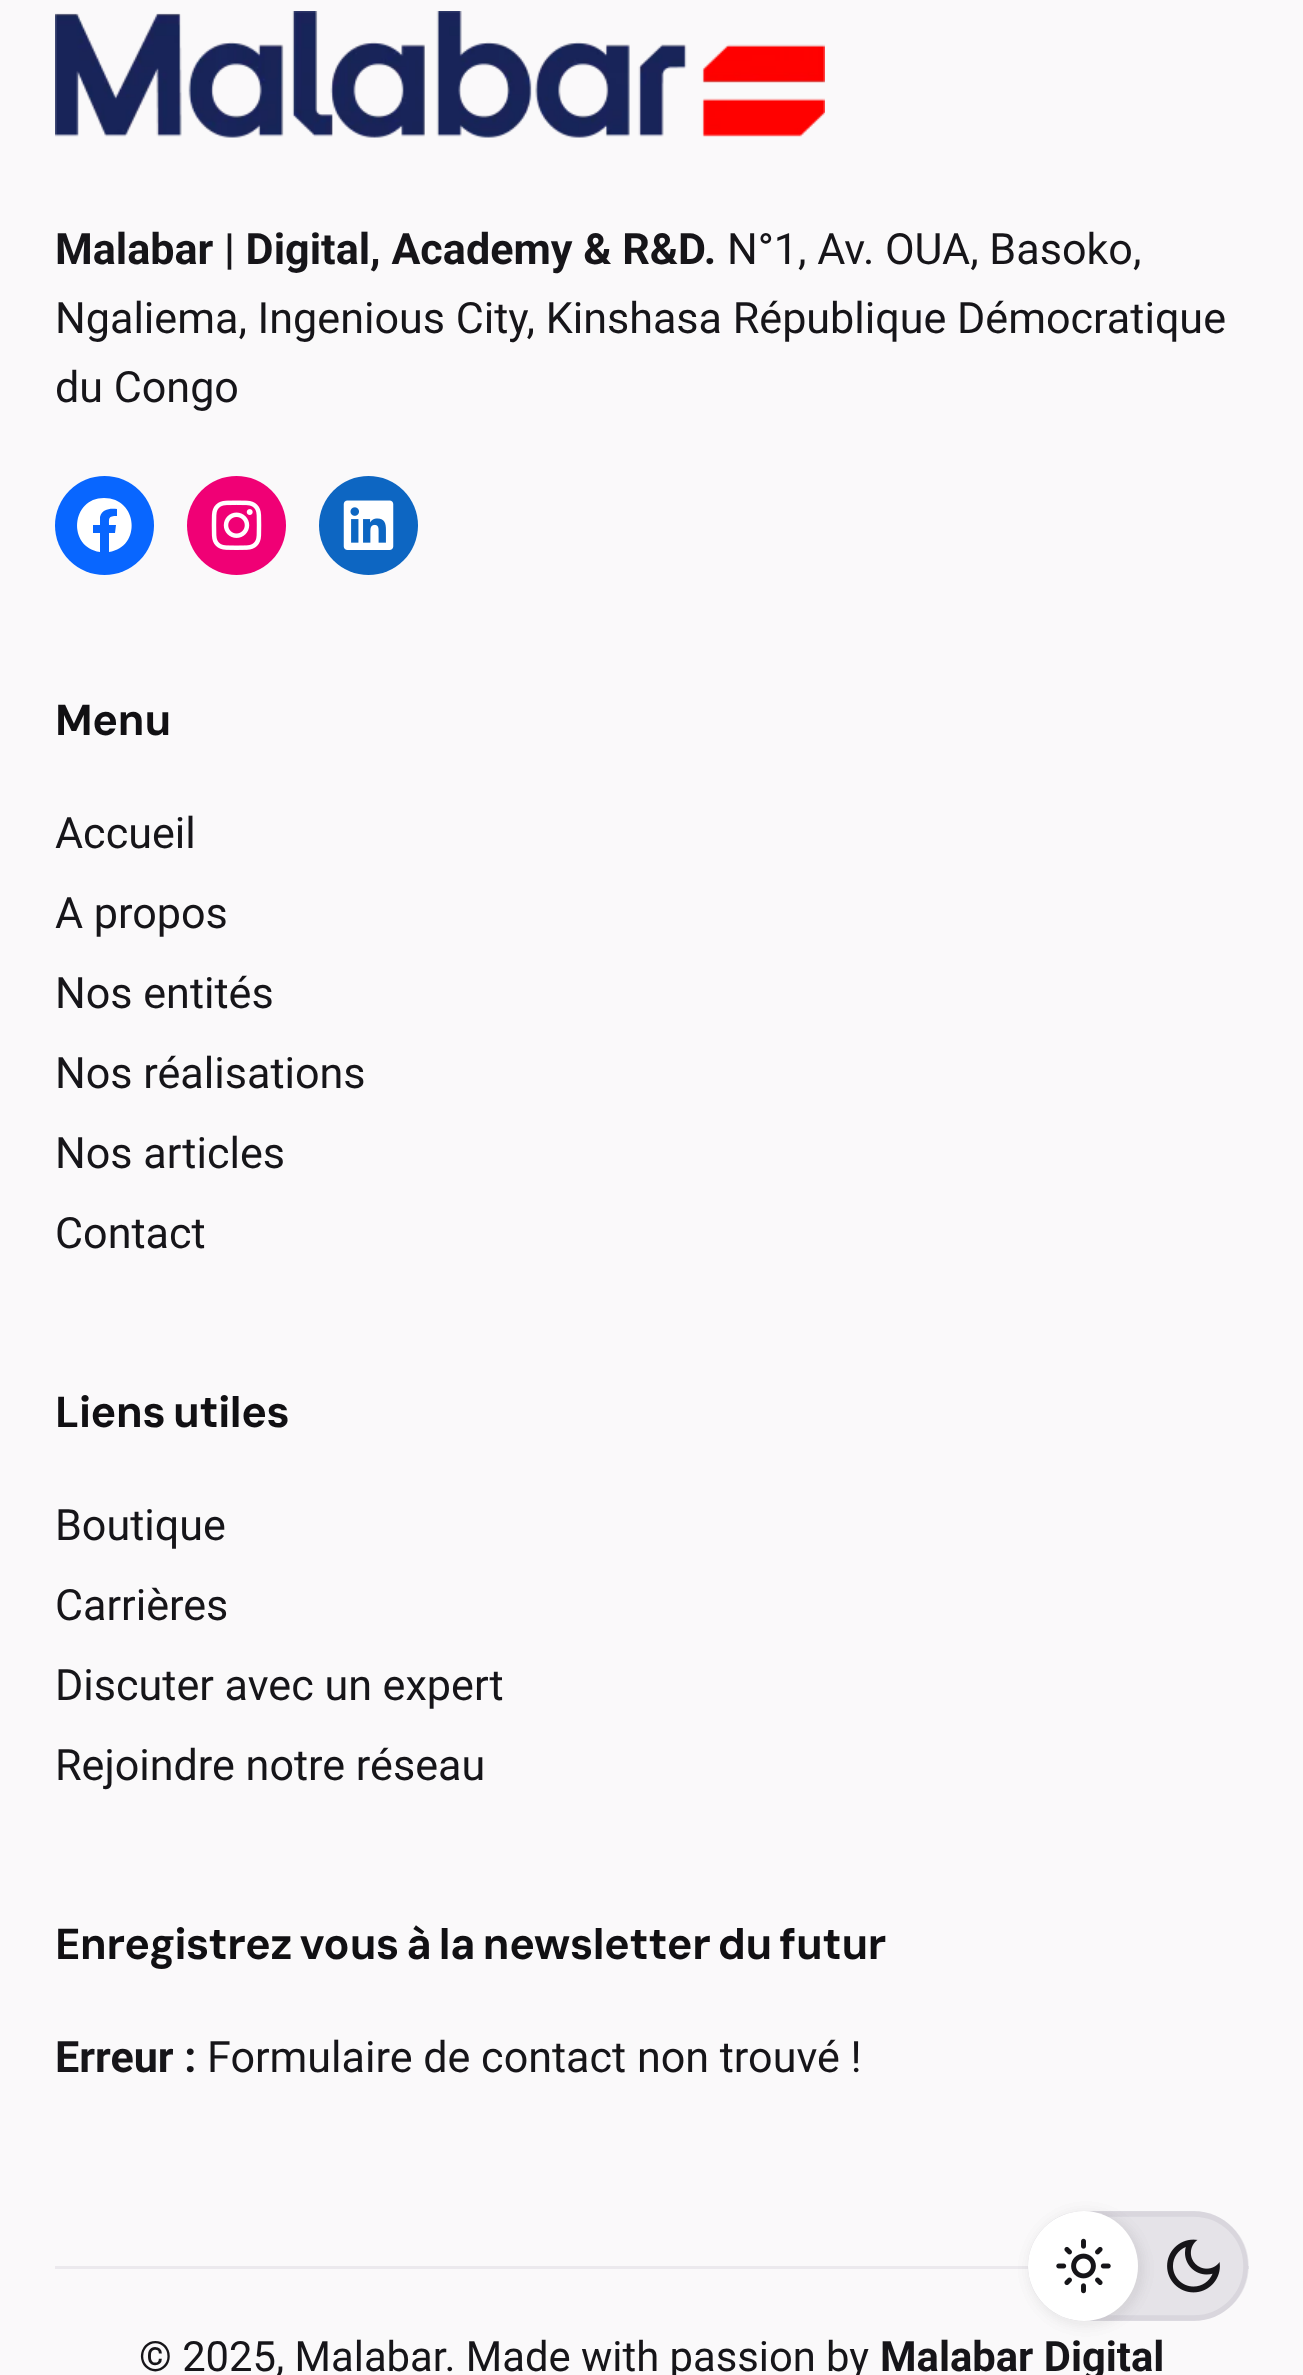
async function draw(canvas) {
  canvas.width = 1303;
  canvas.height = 2375;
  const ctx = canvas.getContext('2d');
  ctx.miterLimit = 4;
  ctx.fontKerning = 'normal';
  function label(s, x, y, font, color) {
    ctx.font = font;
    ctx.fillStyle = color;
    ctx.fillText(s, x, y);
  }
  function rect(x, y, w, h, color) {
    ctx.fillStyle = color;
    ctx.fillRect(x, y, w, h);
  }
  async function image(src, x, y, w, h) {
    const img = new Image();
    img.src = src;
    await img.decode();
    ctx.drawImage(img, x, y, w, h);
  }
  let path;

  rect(0, 0, 1303, 2375, '#faf9fa');
  await image('assets/img1.png', 55, 11, 770, 127);
  label('Malabar | Digital, Academy & R&D.', 55, 264, 'bold 43.1px Roboto', '#161519');
  label('N°1, Av. OUA, Basoko,', 727, 264, '43.1px Roboto', '#161519');
  label('Ngaliema, Ingenious City, Kinshasa République Démocratique', 55, 333, '43.1px Roboto', '#161519');
  label('du Congo', 55, 402, '43.1px Roboto', '#161519');
  ctx.fillStyle = '#0866ff';
  ctx.beginPath();
  ctx.arc(104.5, 525.5, 49.5, 0, 2 * Math.PI);
  ctx.fill();
  ctx.fillStyle = '#fff';
  path = new Path2D('M104 498C71 498 67 547 100 552V533H93V525H100V517C102 509 110 508 117 509V516C108 516 109 518 109 525H116L115 533H109V552C142 547 138 498 104 498Z');
  ctx.fill(path);
  ctx.fillStyle = '#f00075';
  ctx.beginPath();
  ctx.arc(236.5, 525.5, 49.5, 0, 2 * Math.PI);
  ctx.fill();
  await image('assets/img2.png', 211, 500, 51, 50);
  ctx.fillStyle = '#0d66c2';
  ctx.beginPath();
  ctx.arc(368.5, 525.5, 49.5, 0, 2 * Math.PI);
  ctx.fill();
  await image('assets/img3.png', 343, 500, 51, 50);
  ctx.letterSpacing = '-0.45px';
  label('Menu', 55, 735, 'bold 43.1px DM Sans', '#111013');
  ctx.letterSpacing = '0px';
  label('Accueil', 55, 848, '43.1px Roboto', '#161519');
  label('A propos', 55, 928, '43.1px Roboto', '#161519');
  label('Nos entités', 55, 1008, '43.1px Roboto', '#161519');
  label('Nos réalisations', 55, 1088, '43.1px Roboto', '#161519');
  label('Nos articles', 55, 1168, '43.1px Roboto', '#161519');
  label('Contact', 55, 1248, '43.1px Roboto', '#161519');
  ctx.letterSpacing = '-0.45px';
  ctx.wordSpacing = '-2.5px';
  label('Liens utiles', 55, 1427, 'bold 43.1px DM Sans', '#111013');
  ctx.letterSpacing = '0px';
  ctx.wordSpacing = '0px';
  label('Boutique', 55, 1540, '43.1px Roboto', '#161519');
  label('Carrières', 55, 1620, '43.1px Roboto', '#161519');
  label('Discuter avec un expert', 55, 1700, '43.1px Roboto', '#161519');
  label('Rejoindre notre réseau', 55, 1780, '43.1px Roboto', '#161519');
  ctx.letterSpacing = '-0.45px';
  ctx.wordSpacing = '-2.5px';
  label('Enregistrez vous à la newsletter du futur', 55, 1959, 'bold 43.1px DM Sans', '#111013');
  ctx.letterSpacing = '0px';
  ctx.wordSpacing = '0px';
  label('Erreur :', 55, 2072, 'bold 43.1px Roboto', '#161519');
  label('Formulaire de contact non trouvé !', 207, 2072, '43.1px Roboto', '#161519');
  rect(55, 2266, 1194, 3, '#ebe9ed');
  label('© 2025, Malabar. Made with passion by', 139, 2371, '41.75px Roboto', '#161519');
  label('Malabar Digital', 880, 2371, 'bold 41.75px Roboto', '#161519');
  ctx.fillStyle = '#e5e3e8';
  path = new Path2D('M1194 2321H1084C1053 2321 1028 2296 1028 2266C1028 2236 1053 2211 1084 2211H1194C1224 2211 1248 2236 1248 2266C1248 2296 1224 2321 1194 2321Z');
  ctx.fill(path);
  path = new Path2D('M1193.5 2318H1083.5C1054.5 2318 1031 2295 1031 2266C1031 2237 1054.5 2214 1083.5 2214H1193.5C1222.5 2214 1246 2237 1246 2266C1246 2295 1222.5 2318 1193.5 2318Z');
  ctx.strokeStyle = '#9690a226';
  ctx.lineWidth = 5.5;
  ctx.stroke(path);
  ctx.fillStyle = '#1110130d';
  ctx.filter = 'blur(8px)';
  ctx.beginPath();
  ctx.roundRect(1031, 2214, 110, 110, 55);
  ctx.fill();
  ctx.filter = 'none';
  ctx.filter = 'blur(8px)';
  ctx.beginPath();
  ctx.roundRect(1031, 2214, 110, 110, 55);
  ctx.fill();
  ctx.filter = 'none';
  ctx.fillStyle = '#fff';
  path = new Path2D('M1084 2321C1053 2321 1028 2296 1028 2266C1028 2236 1053 2211 1084 2211C1114 2211 1138 2236 1138 2266C1138 2296 1114 2321 1084 2321Z');
  ctx.fill(path);
  await image('assets/img4.png', 1056, 2238, 55, 56);
  await image('assets/img5.png', 1167, 2239, 53, 54);
}

draw(document.querySelector('canvas'));
